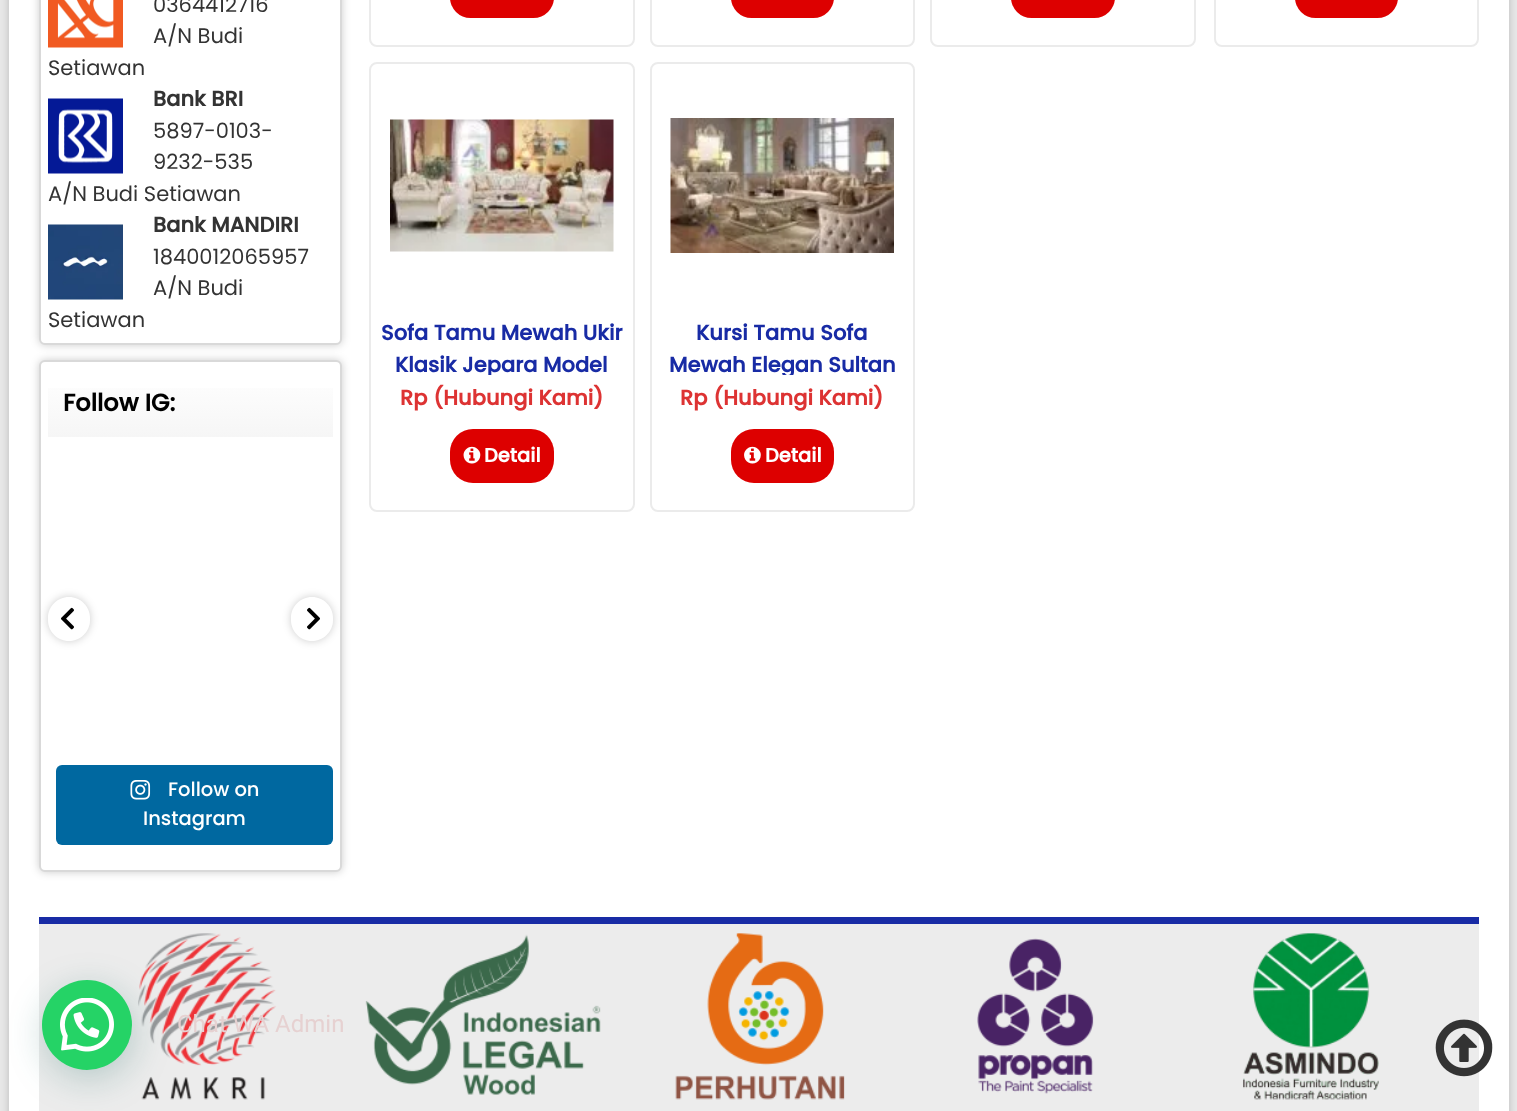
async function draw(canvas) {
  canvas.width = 1517;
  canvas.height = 1111;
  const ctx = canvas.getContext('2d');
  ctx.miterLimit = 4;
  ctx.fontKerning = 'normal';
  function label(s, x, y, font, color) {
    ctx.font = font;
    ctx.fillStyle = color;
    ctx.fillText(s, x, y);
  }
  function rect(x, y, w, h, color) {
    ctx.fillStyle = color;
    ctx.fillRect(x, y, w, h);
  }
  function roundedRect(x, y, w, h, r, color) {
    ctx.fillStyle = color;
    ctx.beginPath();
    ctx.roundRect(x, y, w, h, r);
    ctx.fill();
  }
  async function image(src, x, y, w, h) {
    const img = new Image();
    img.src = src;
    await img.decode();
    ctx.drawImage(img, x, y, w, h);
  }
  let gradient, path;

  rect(0, 0, 1517, 1111, '#e8e8e8');
  ctx.fillStyle = '#00000033';
  ctx.filter = 'blur(4px)';
  ctx.beginPath();
  ctx.rect(9, -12, 1500, 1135);
  ctx.fill();
  ctx.filter = 'none';
  rect(9, 0, 1500, 1111, '#fff');
  ctx.fillStyle = '#00000033';
  ctx.filter = 'blur(4px)';
  ctx.beginPath();
  ctx.roundRect(39, -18, 303, 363, 6);
  ctx.fill();
  ctx.filter = 'none';
  ctx.fillStyle = '#fff';
  ctx.beginPath();
  ctx.roundRect(40, -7, 301, 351, 5);
  ctx.fill();
  ctx.strokeStyle = '#d9d9d9';
  ctx.lineWidth = 2;
  ctx.stroke();
  await image('assets/img1.png', 48, 0, 75, 48);
  label('0364412716', 153, 12, '21px Poppins', '#333');
  label('A/N Budi', 153, 43, '21px Poppins', '#333');
  label('Setiawan', 48, 75, '21px Poppins', '#333');
  await image('assets/img2.png', 48, 98, 75, 76);
  label('Bank BRI', 153, 106, 'bold 21px Poppins', '#333');
  label('5897-0103-', 153, 138, '21px Poppins', '#333');
  label('9232-535', 153, 169, '21px Poppins', '#333');
  label('A/N Budi Setiawan', 48, 201, '21px Poppins', '#333');
  await image('assets/img3.png', 48, 224, 75, 76);
  label('Bank MANDIRI', 153, 232, 'bold 21px Poppins', '#333');
  label('1840012065957', 153, 264, '21px Poppins', '#333');
  label('A/N Budi', 153, 295, '21px Poppins', '#333');
  label('Setiawan', 48, 327, '21px Poppins', '#333');
  ctx.fillStyle = '#00000033';
  ctx.filter = 'blur(4px)';
  ctx.beginPath();
  ctx.roundRect(39, 360, 303, 512, 6);
  ctx.fill();
  ctx.filter = 'none';
  ctx.fillStyle = '#fff';
  ctx.beginPath();
  ctx.roundRect(40, 361, 301, 510, 5);
  ctx.fill();
  ctx.stroke();
  gradient = ctx.createLinearGradient(191, 369, 191, 437);
  gradient.addColorStop(0, '#fff');
  gradient.addColorStop(1, '#f6f6f6');
  ctx.fillStyle = gradient;
  ctx.fillRect(48, 388, 285, 49);
  label('Follow IG:', 63, 411, 'bold 24px Poppins', '#000');
  ctx.save();
  path = new Path2D('M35 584H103V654H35ZM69 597C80.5 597 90 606.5 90 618V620C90 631.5 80.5 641 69 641C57.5 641 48 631.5 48 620V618C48 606.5 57.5 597 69 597Z');
  ctx.clip(path, 'evenodd');
  ctx.fillStyle = '#00000033';
  ctx.filter = 'blur(4px)';
  ctx.beginPath();
  ctx.roundRect(48, 597, 42, 44, 21);
  ctx.fill();
  ctx.filter = 'none';
  ctx.restore();
  roundedRect(48, 597, 42, 44, 21, '#ffffff4d');
  await image('assets/img4.png', 61, 607, 13, 23);
  ctx.save();
  path = new Path2D('M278 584H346V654H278ZM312 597C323.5 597 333 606.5 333 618V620C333 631.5 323.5 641 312 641C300.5 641 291 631.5 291 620V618C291 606.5 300.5 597 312 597Z');
  ctx.clip(path, 'evenodd');
  ctx.fillStyle = '#00000033';
  ctx.filter = 'blur(4px)';
  ctx.beginPath();
  ctx.roundRect(291, 597, 42, 44, 21);
  ctx.fill();
  ctx.filter = 'none';
  ctx.restore();
  roundedRect(291, 597, 42, 44, 21, '#ffffff4d');
  await image('assets/img5.png', 307, 607, 13, 23);
  roundedRect(56, 765, 277, 80, 6, '#0068a0');
  await image('assets/img6.png', 130, 780, 21, 20);
  label('Follow on', 168, 796, '500 19.5px Poppins', '#fff');
  label('Instagram', 143, 825, '500 19.5px Poppins', '#fff');
  ctx.beginPath();
  ctx.roundRect(370, -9, 264, 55, 7);
  ctx.strokeStyle = '#ebebeb';
  ctx.stroke();
  roundedRect(450, -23, 104, 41, 23, '#d00');
  ctx.beginPath();
  ctx.roundRect(651, -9, 263, 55, 7);
  ctx.stroke();
  roundedRect(731, -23, 103, 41, 23, '#d00');
  ctx.beginPath();
  ctx.roundRect(931, -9, 264, 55, 7);
  ctx.stroke();
  roundedRect(1011, -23, 104, 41, 23, '#d00');
  ctx.beginPath();
  ctx.roundRect(1215, -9, 263, 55, 7);
  ctx.stroke();
  roundedRect(1295, -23, 103, 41, 23, '#d00');
  ctx.beginPath();
  ctx.roundRect(370, 63, 264, 448, 7);
  ctx.stroke();
  await image('assets/img7.png', 390, 119, 224, 133);
  label('Sofa Tamu Mewah Ukir', 381, 340, 'bold 21px Poppins', '#182ba5');
  ctx.save();
  ctx.beginPath();
  ctx.rect(371, 318, 262, 57);
  ctx.clip();
  label('Klasik Jepara Model', 395, 372, 'bold 21px Poppins', '#182ba5');
  ctx.restore();
  label('Rp (Hubungi Kami)', 400, 405, 'bold 21px Poppins', '#d33');
  roundedRect(450, 429, 104, 54, 23, '#d00');
  await image('assets/img8.png', 463, 446, 18, 18);
  label('Detail', 484, 462, 'bold 19.5px Poppins', '#fff');
  ctx.beginPath();
  ctx.roundRect(651, 63, 263, 448, 7);
  ctx.stroke();
  await image('assets/img9.png', 670, 118, 224, 135);
  label('Kursi Tamu Sofa', 696, 340, 'bold 21px Poppins', '#182ba5');
  ctx.save();
  ctx.beginPath();
  ctx.rect(651, 318, 263, 57);
  ctx.clip();
  label('Mewah Elegan Sultan', 669, 372, 'bold 21px Poppins', '#182ba5');
  ctx.restore();
  label('Rp (Hubungi Kami)', 680, 405, 'bold 21px Poppins', '#d33');
  roundedRect(731, 429, 103, 54, 23, '#d00');
  await image('assets/img10.png', 744, 446, 17, 18);
  label('Detail', 765, 462, 'bold 19.5px Poppins', '#fff');
  rect(39, 924, 1440, 187, '#ececec');
  rect(39, 917, 1440, 7, '#182ba5');
  await image('assets/img11.png', 138, 933, 1241, 167);
  ctx.fillStyle = '#075e543d';
  ctx.filter = 'blur(18px)';
  ctx.beginPath();
  ctx.roundRect(44, 989, 90, 90, 45);
  ctx.fill();
  ctx.filter = 'none';
  ctx.fillStyle = '#25d366';
  ctx.beginPath();
  ctx.arc(87, 1025, 45, 0, 2 * Math.PI);
  ctx.fill();
  await image('assets/img12.png', 60, 998, 54, 54);
  label('Chat WA Admin', 177, 1032, '24px Roboto', '#e6d1d1');
  await image('assets/img13.png', 1435, 1019, 58, 58);
}

draw(document.querySelector('canvas'));
